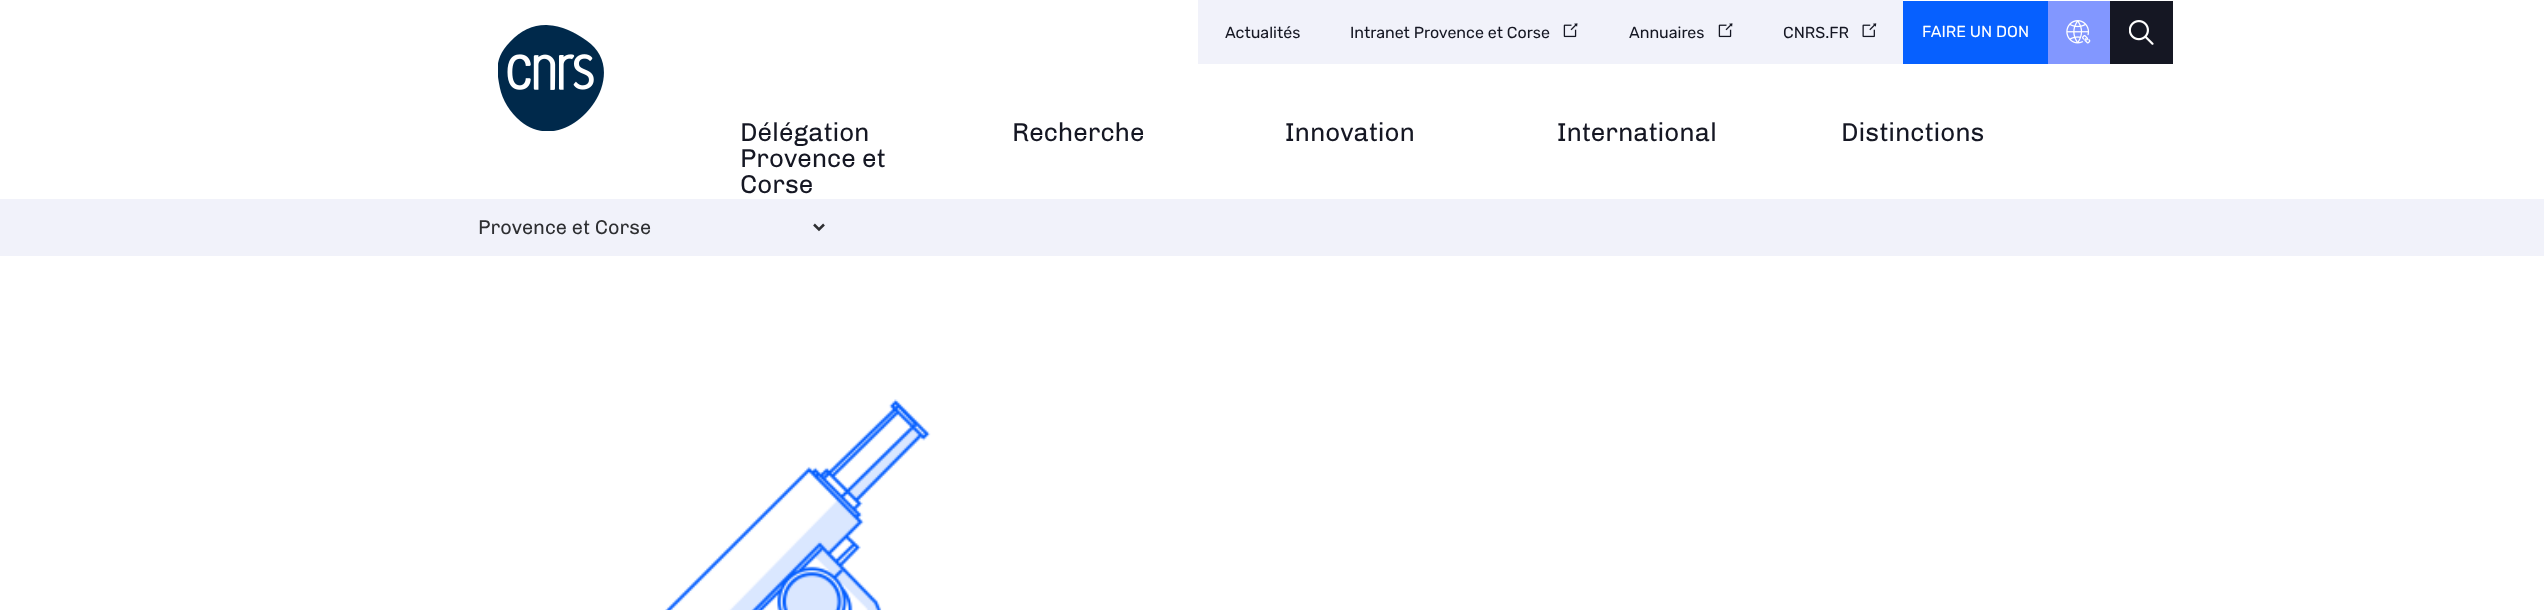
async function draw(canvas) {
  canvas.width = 2544;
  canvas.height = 610;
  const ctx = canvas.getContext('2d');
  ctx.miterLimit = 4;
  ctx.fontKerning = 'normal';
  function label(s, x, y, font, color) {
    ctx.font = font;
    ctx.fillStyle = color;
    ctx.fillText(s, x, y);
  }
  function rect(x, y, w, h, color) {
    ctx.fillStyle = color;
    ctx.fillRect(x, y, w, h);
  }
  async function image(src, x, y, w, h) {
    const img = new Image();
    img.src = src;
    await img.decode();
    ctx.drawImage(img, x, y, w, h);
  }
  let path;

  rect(0, 0, 2544, 610, '#fff');
  await image('assets/img1.png', 498, 25, 106, 106);
  rect(1198, 0, 705, 64, '#f1f2fa');
  label('Actualités', 1225, 38, '300 16px Rubik', '#151723');
  label('Intranet Provence et Corse', 1350, 38, '300 16px Rubik', '#151723');
  await image('assets/img2.png', 1563, 23, 15, 15);
  label('Annuaires', 1629, 38, '300 16px Rubik', '#151723');
  await image('assets/img2.png', 1718, 23, 15, 15);
  label('CNRS.FR', 1783, 38, '300 16px Rubik', '#151723');
  await image('assets/img3.png', 1862, 23, 15, 15);
  rect(1903, 1, 145, 63, '#0660ff');
  label('FAIRE UN DON', 1922, 37, '300 16px Rubik', '#fff');
  rect(2048, 1, 62, 63, '#8297ff');
  await image('assets/img4.png', 2066, 20, 25, 24);
  rect(2110, 1, 63, 63, '#151723');
  await image('assets/img5.png', 2129, 20, 25, 25);
  label('Délégation', 740, 141, '26px Chivo', '#151723');
  label('Provence et', 740, 167, '26px Chivo', '#151723');
  label('Corse', 740, 193, '26px Chivo', '#151723');
  label('Recherche', 1012, 141, '26px Chivo', '#151723');
  label('Innovation', 1285, 141, '26px Chivo', '#151723');
  label('International', 1557, 141, '26px Chivo', '#151723');
  label('Distinctions', 1841, 141, '26px Chivo', '#151723');
  rect(0, 199, 2544, 57, '#f1f2fa');
  path = new Path2D('M814 224.5L819 229.5L824 224.5');
  ctx.strokeStyle = '#2e2f32';
  ctx.lineWidth = 2.5;
  ctx.stroke(path);
  label('Provence et Corse', 478, 234, '20px Chivo', '#2e2f32');
  await image('assets/img6.png', 665, 399, 266, 211);
}

draw(document.querySelector('canvas'));
